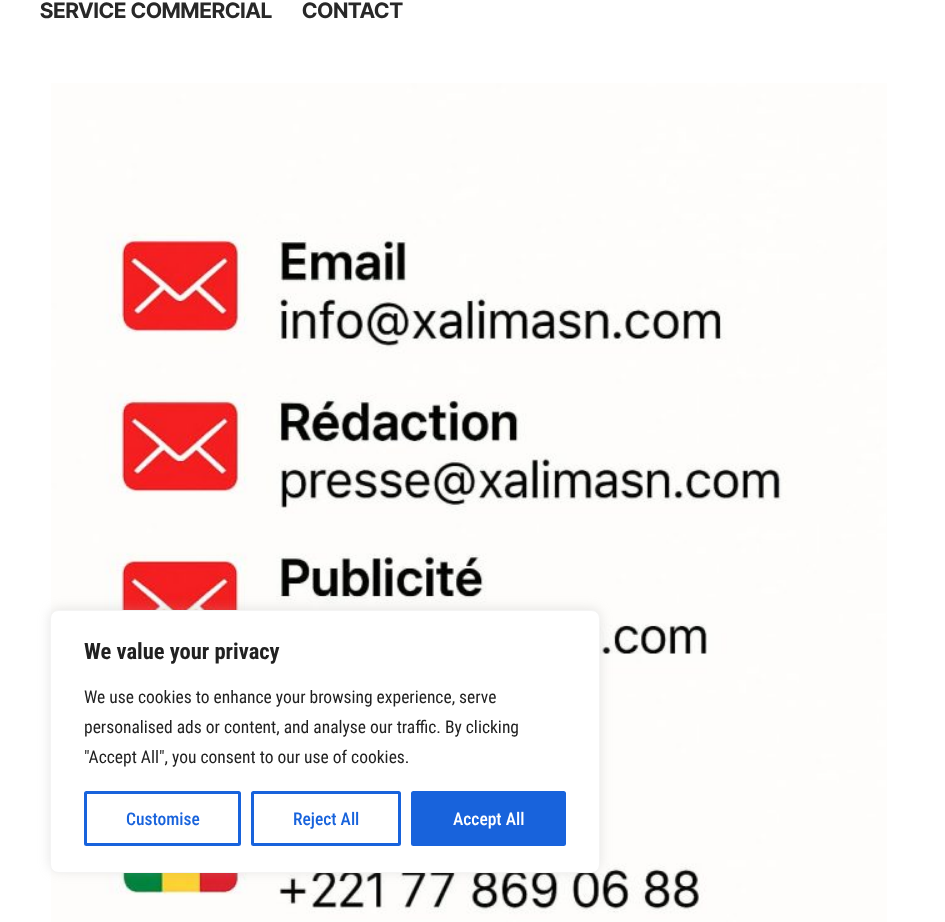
async function draw(canvas) {
  canvas.width = 945;
  canvas.height = 922;
  const ctx = canvas.getContext('2d');
  ctx.miterLimit = 4;
  ctx.fontKerning = 'normal';
  function label(s, x, y, font, color) {
    ctx.font = font;
    ctx.fillStyle = color;
    ctx.fillText(s, x, y);
  }
  function rect(x, y, w, h, color) {
    ctx.fillStyle = color;
    ctx.fillRect(x, y, w, h);
  }
  async function image(src, x, y, w, h) {
    const img = new Image();
    img.src = src;
    await img.decode();
    ctx.drawImage(img, x, y, w, h);
  }

  rect(0, 0, 945, 922, '#fff');
  label('SERVICE COMMERCIAL', 40, 18, 'bold 21.25px Inter Tight', '#282828');
  label('CONTACT', 302, 18, 'bold 21.25px Inter Tight', '#282828');
  await image('assets/img1.png', 51, 83, 836, 839);
  ctx.fillStyle = '#acabab4d';
  ctx.filter = 'blur(6px)';
  ctx.beginPath();
  ctx.roundRect(50, 609, 550, 262, 8);
  ctx.fill();
  ctx.filter = 'none';
  ctx.fillStyle = '#fff';
  ctx.beginPath();
  ctx.roundRect(50.5, 610.5, 549, 262, 7.5);
  ctx.fill();
  ctx.strokeStyle = '#f4f4f4';
  ctx.stroke();
  label('We value your privacy', 84, 659, 'bold 22.5px Roboto Condensed', '#212121');
  label('We use cookies to enhance your browsing experience, serve', 84, 703, '17.5px Roboto Condensed', '#212121');
  label('personalised ads or content, and analyse our traffic. By clicking', 84, 733, '17.5px Roboto Condensed', '#212121');
  label('"Accept All", you consent to our use of cookies.', 84, 763, '17.5px Roboto Condensed', '#212121');
  ctx.beginPath();
  ctx.roundRect(85.5, 792.5, 154, 52, 1);
  ctx.strokeStyle = '#1863dc';
  ctx.lineWidth = 3;
  ctx.stroke();
  label('Customise', 126, 825, '500 17.5px Roboto Condensed', '#1863dc');
  ctx.beginPath();
  ctx.roundRect(252.5, 792.5, 147, 52, 1);
  ctx.stroke();
  label('Reject All', 293, 825, '500 17.5px Roboto Condensed', '#1863dc');
  ctx.beginPath();
  ctx.roundRect(412.5, 792.5, 152, 52, 1);
  ctx.fill();
  ctx.stroke();
  label('Accept All', 453, 825, '500 17.5px Roboto Condensed', '#fff');
}

draw(document.querySelector('canvas'));
